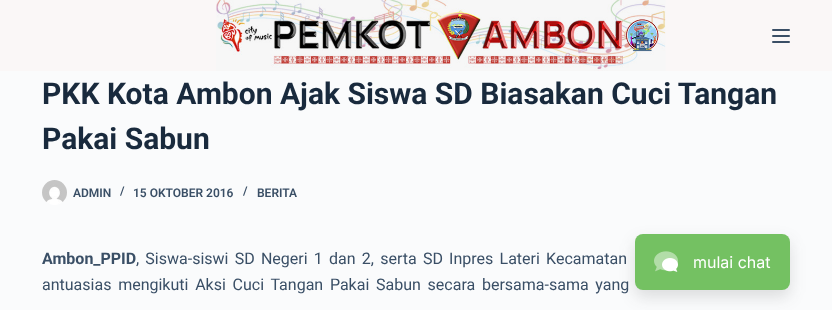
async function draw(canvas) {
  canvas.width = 832;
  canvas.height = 310;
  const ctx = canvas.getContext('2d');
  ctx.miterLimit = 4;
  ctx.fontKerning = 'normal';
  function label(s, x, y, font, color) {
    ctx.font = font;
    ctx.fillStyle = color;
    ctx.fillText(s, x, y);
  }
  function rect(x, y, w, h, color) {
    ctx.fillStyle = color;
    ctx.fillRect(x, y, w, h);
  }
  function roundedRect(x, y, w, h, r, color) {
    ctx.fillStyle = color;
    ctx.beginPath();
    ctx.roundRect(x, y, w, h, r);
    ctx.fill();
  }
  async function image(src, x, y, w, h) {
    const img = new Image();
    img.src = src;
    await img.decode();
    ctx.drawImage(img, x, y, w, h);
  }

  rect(0, 0, 832, 310, '#fafbfc');
  rect(0, 0, 832, 71, '#faf7f7');
  await image('assets/img1.png', 216, 0, 450, 71);
  roundedRect(772, 29, 18, 2, 1, '#3a4f66');
  roundedRect(772, 35, 18, 2, 1, '#3a4f66');
  roundedRect(772, 41, 18, 2, 1, '#3a4f66');
  label('PKK Kota Ambon Ajak Siswa SD Biasakan Cuci Tangan', 42, 104, 'bold 30px Roboto', '#192a3d');
  label('Pakai Sabun', 42, 149, 'bold 30px Roboto', '#192a3d');
  await image('assets/img2.png', 42, 180, 25, 25);
  label('ADMIN', 73, 197, '600 12px Roboto', '#3a4f66');
  label('/', 120, 195, '600 12px Roboto', '#3a4f66');
  label('15 OKTOBER 2016', 133, 197, '600 12px Roboto', '#3a4f66');
  label('/', 243, 195, '600 12px Roboto', '#3a4f66');
  label('BERITA', 257, 197, '600 12px Roboto', '#3a4f66');
  label('Ambon_PPID', 42, 264, 'bold 16px Roboto', '#3a4f66');
  ctx.wordSpacing = '2.25px';
  label(', Siswa-siswi SD Negeri 1 dan 2, serta SD Inpres Lateri Kecamatan', 136, 264, '16px Roboto', '#3a4f66');
  ctx.wordSpacing = '2.75px';
  label('antuasias mengikuti Aksi Cuci Tangan Pakai Sabun secara bersama-sama yang', 42, 290, '16px Roboto', '#3a4f66');
  ctx.fillStyle = '#2e2e2e26';
  ctx.filter = 'blur(8px)';
  ctx.beginPath();
  ctx.roundRect(635, 241, 155, 56, 8);
  ctx.fill();
  ctx.filter = 'none';
  roundedRect(635, 234, 155, 56, 8, '#74c162');
  await image('assets/img3.png', 654, 251, 24, 21);
  ctx.wordSpacing = '0px';
  label('mulai chat', 693, 268, '16px Inter', '#fff');
}

draw(document.querySelector('canvas'));
